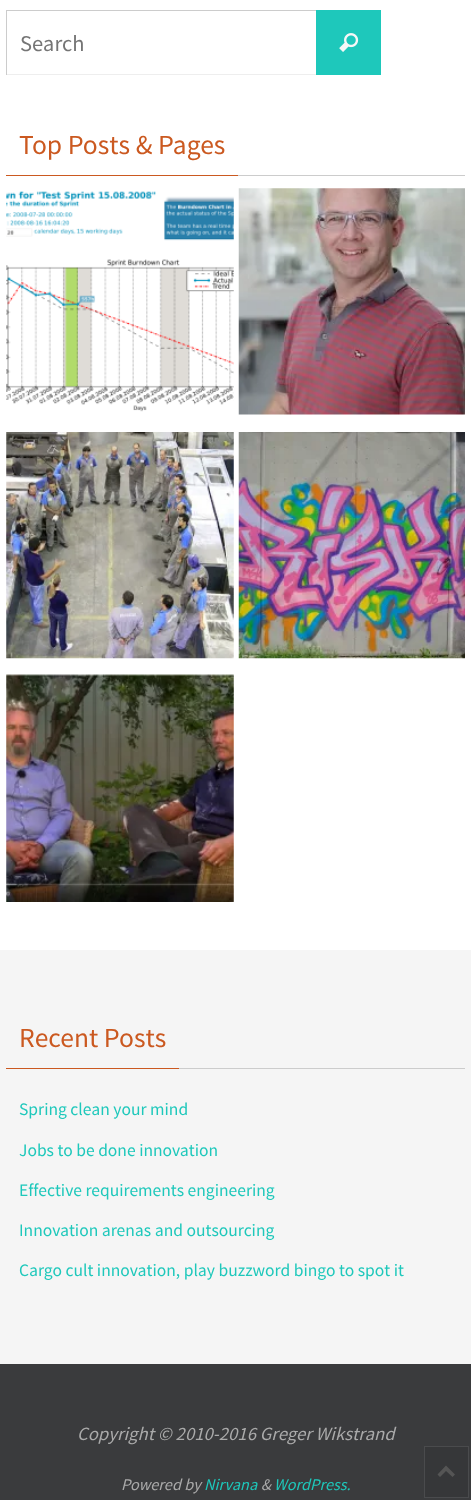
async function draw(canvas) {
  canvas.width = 471;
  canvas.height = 1500;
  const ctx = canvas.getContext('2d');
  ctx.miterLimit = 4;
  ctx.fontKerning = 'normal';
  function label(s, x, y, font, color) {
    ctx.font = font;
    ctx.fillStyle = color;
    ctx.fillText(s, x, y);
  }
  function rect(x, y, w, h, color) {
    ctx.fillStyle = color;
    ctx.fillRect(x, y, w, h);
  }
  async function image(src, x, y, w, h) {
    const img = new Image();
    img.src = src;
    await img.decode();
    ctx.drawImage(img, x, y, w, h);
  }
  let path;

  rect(0, 0, 471, 1500, '#fff');
  rect(316, 10, 65, 65, '#1ec8bb');
  rect(6, 10, 310, 1, '#ccc');
  rect(6, 74, 310, 1, '#eee');
  rect(6, 10, 1, 65, '#ccc');
  label('Search', 20, 51, '22.5px Source Sans Pro', '#757575');
  await image('assets/img1.png', 339, 33, 20, 19);
  rect(238, 175, 227, 1, '#ccc');
  rect(6, 175, 232, 1, '#cb5920');
  label('Top Posts & Pages', 19, 154, '27.5px Source Sans Pro', '#cb5920');
  await image('assets/img2.png', 6, 191, 228, 221);
  await image('assets/img3.png', 238, 188, 227, 227);
  await image('assets/img4.png', 6, 432, 228, 227);
  await image('assets/img5.png', 238, 432, 227, 227);
  await image('assets/img6.png', 6, 674, 228, 228);
  rect(0, 950, 471, 414, '#f5f5f5');
  rect(179, 1068, 286, 1, '#ccc');
  rect(6, 1068, 173, 1, '#cb5920');
  label('Recent Posts', 19, 1047, '27.5px Source Sans Pro', '#cb5920');
  label('Spring clean your mind', 19, 1115, '17.5px Source Sans Pro', '#1ec8bb');
  label('Jobs to be done innovation', 19, 1156, '17.5px Source Sans Pro', '#1ec8bb');
  label('Effective requirements engineering', 19, 1196, '17.5px Source Sans Pro', '#1ec8bb');
  label('Innovation arenas and outsourcing', 19, 1236, '17.5px Source Sans Pro', '#1ec8bb');
  label('Cargo cult innovation, play buzzword bingo to spot it', 19, 1276, '17.5px Source Sans Pro', '#1ec8bb');
  rect(0, 1364, 471, 136, '#3a3b3d');
  label('Copyright © 2010-2016 Greger Wikstrand', 77, 1440, 'italic 18.75px Source Sans Pro', '#aaa');
  label('Powered by', 121, 1490, 'italic 16.25px Source Sans Pro', '#aaa');
  label('Nirvana', 204, 1490, 'italic 16.25px Source Sans Pro', '#1ec8bb');
  label('&', 261, 1490, 'italic 16.25px Source Sans Pro', '#aaa');
  label('WordPress.', 274, 1490, 'italic 16.25px Source Sans Pro', '#1ec8bb');
  rect(424, 1446, 45, 52, '#0000000f');
  ctx.strokeStyle = '#ffffff1a';
  ctx.strokeRect(424.5, 1446.5, 44, 51);
  ctx.fillStyle = '#555';
  path = new Path2D('M437.5 1474.5L446 1465.5L455 1474.5L452.5 1477L446 1471L440 1477Z');
  ctx.fill(path);
}

draw(document.querySelector('canvas'));
